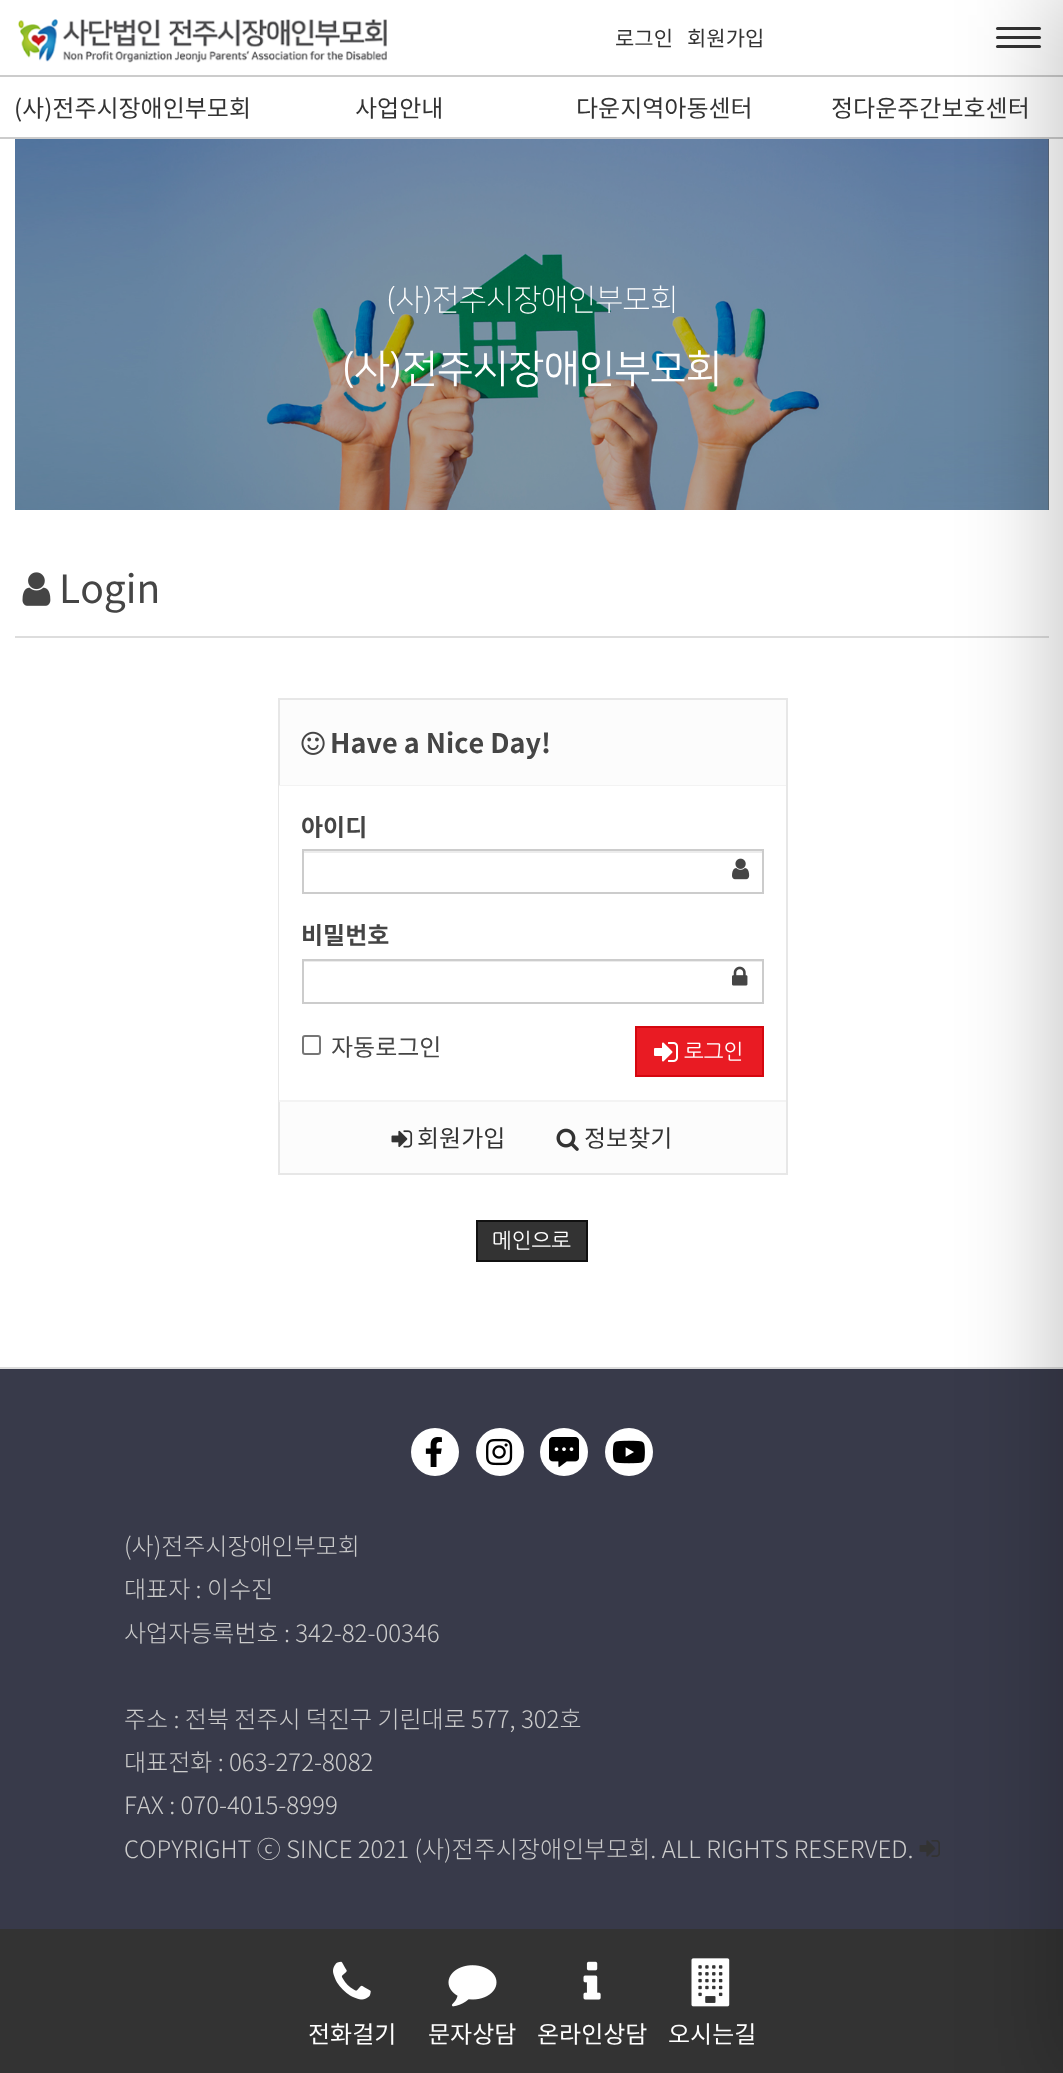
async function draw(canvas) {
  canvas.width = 1063;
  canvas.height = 2073;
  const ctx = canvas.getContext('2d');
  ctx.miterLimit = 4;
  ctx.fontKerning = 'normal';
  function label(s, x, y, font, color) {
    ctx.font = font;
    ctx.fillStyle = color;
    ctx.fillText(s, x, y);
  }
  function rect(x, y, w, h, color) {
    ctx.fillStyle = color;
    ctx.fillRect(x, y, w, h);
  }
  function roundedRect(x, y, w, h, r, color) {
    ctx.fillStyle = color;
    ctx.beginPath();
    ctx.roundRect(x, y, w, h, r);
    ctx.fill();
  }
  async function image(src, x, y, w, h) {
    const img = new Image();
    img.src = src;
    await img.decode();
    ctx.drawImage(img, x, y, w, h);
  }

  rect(0, 0, 1063, 2073, '#fff');
  roundedRect(996, 27, 45, 3, 1.5, '#333');
  roundedRect(996, 36, 45, 3, 1.5, '#333');
  roundedRect(996, 45, 45, 3, 1.5, '#333');
  rect(0, 75, 1063, 2, '#ccc');
  rect(0, 137, 1063, 2, '#ccc');
  rect(1048, 139, 1, 371, '#5f5f5f');
  await image('assets/img2.png', 15, 139, 1034, 371);
  rect(15, 636, 1034, 2, '#ddd');
  rect(0, 1369, 1063, 560, '#383a4a');
  rect(0, 1367, 1063, 2, '#ddd');
  await image('assets/img14.png', 919, 1840, 21, 17);
  rect(0, 1929, 1063, 144, '#333');
  ctx.fillStyle = '#00000036';
  ctx.filter = 'blur(45px)';
  ctx.beginPath();
  ctx.rect(1049, -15, 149, 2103);
  ctx.fill();
  ctx.filter = 'none';
  await image('assets/img1.png', 18, 19, 369, 44);
  label('로그인', 615, 46, '21px Noto Sans CJK KR', '#333');
  label('회원가입', 687, 46, '21px Noto Sans CJK KR', '#333');
  label('(사)전주시장애인부모회', 14, 117, '24px Noto Sans CJK KR', '#333');
  label('사업안내', 355, 117, '24px Noto Sans CJK KR', '#333');
  label('다운지역아동센터', 576, 117, '24px Noto Sans CJK KR', '#333');
  label('정다운주간보호센터', 831, 117, '24px Noto Sans CJK KR', '#333');
  label('(사)전주시장애인부모회', 387, 309, '300 30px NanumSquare', '#fff');
  label('(사)전주시장애인부모회', 342, 381, '39px NanumSquare', '#fff');
  await image('assets/img3.png', 22, 572, 29, 34);
  label('Login', 59, 603, '39px Noto Sans CJK KR', '#454545');
  ctx.fillStyle = '#fcfcfc';
  ctx.beginPath();
  ctx.rect(279, 699, 508, 475);
  ctx.fill();
  ctx.strokeStyle = '#e7e7e7';
  ctx.lineWidth = 2;
  ctx.stroke();
  rect(279, 785, 507, 1, '#f3f3f3');
  await image('assets/img4.png', 301, 731, 24, 24);
  label('Have a Nice Day!', 330, 753, 'bold 27px Noto Sans CJK KR', '#454545');
  rect(279, 786, 507, 314, '#fff');
  label('아이디', 301, 836, 'bold 24px Noto Sans CJK KR', '#454545');
  rect(303, 851, 459, 2, '#ececec');
  ctx.strokeStyle = '#ccc';
  ctx.strokeRect(303, 850, 460, 43);
  await image('assets/img5.png', 732, 858, 18, 22);
  label('비밀번호', 301, 944, 'bold 24px Noto Sans CJK KR', '#454545');
  rect(303, 961, 459, 1, '#ececec');
  ctx.strokeRect(303, 960, 460, 43);
  await image('assets/img6.png', 732, 966, 16, 20);
  ctx.beginPath();
  ctx.roundRect(303, 1036, 17, 18, 2);
  ctx.strokeStyle = '#767676';
  ctx.stroke();
  label('자동로그인', 331, 1056, '24px Noto Sans CJK KR', '#454545');
  ctx.fillStyle = '#e91b23';
  ctx.beginPath();
  ctx.rect(636, 1027, 127, 49);
  ctx.fill();
  ctx.strokeStyle = '#d5070f';
  ctx.stroke();
  await image('assets/img7.png', 654, 1042, 24, 20);
  label('로그인', 684, 1059, '21px NanumGothic', '#fff');
  rect(279, 1100, 507, 2, '#f3f3f3');
  await image('assets/img8.png', 391, 1130, 22, 18);
  label('회원가입', 417, 1147, '24px Noto Sans CJK KR', '#333');
  await image('assets/img9.png', 556, 1128, 23, 23);
  label('정보찾기', 584, 1147, '24px Noto Sans CJK KR', '#333');
  ctx.beginPath();
  ctx.rect(477, 1221, 110, 40);
  ctx.fill();
  ctx.strokeStyle = '#111';
  ctx.stroke();
  label('메인으로', 492, 1248, '21px NanumGothic', '#fff');
  ctx.beginPath();
  ctx.arc(435, 1452, 24, 0, 2 * Math.PI);
  ctx.fill();
  await image('assets/img10.png', 425, 1437, 17, 30);
  ctx.beginPath();
  ctx.arc(500, 1452, 24, 0, 2 * Math.PI);
  ctx.fill();
  await image('assets/img11.png', 486, 1438, 27, 28);
  ctx.beginPath();
  ctx.arc(564, 1452, 24, 0, 2 * Math.PI);
  ctx.fill();
  await image('assets/img12.png', 549, 1437, 30, 30);
  ctx.beginPath();
  ctx.arc(629, 1452, 24, 0, 2 * Math.PI);
  ctx.fill();
  await image('assets/img13.png', 612, 1440, 33, 24);
  label('(사)전주시장애인부모회', 124, 1555, '300 24px Noto Sans CJK KR', '#ccc');
  label('대표자 : 이수진', 124, 1598, '300 24px Noto Sans CJK KR', '#ccc');
  label('사업자등록번호 : 342-82-00346', 124, 1642, '300 24px Noto Sans CJK KR', '#ccc');
  label('주소 : 전북 전주시 덕진구 기린대로 577, 302호', 124, 1728, '300 24px Noto Sans CJK KR', '#ccc');
  label('대표전화 : 063-272-8082', 124, 1771, '300 24px Noto Sans CJK KR', '#ccc');
  label('FAX : 070-4015-8999', 124, 1814, '300 24px Noto Sans CJK KR', '#ccc');
  label('COPYRIGHT ⓒ SINCE 2021 (사)전주시장애인부모회. ALL RIGHTS RESERVED.', 124, 1858, '300 24px Noto Sans CJK KR', '#ccc');
  await image('assets/img15.png', 333, 1961, 38, 39);
  label('전화걸기', 308, 2043, '24px Noto Sans CJK KR', '#fff');
  await image('assets/img16.png', 448, 1965, 49, 42);
  label('문자상담', 428, 2043, '24px Noto Sans CJK KR', '#fff');
  await image('assets/img17.png', 583, 1961, 18, 39);
  label('온라인상담', 537, 2043, '24px Noto Sans CJK KR', '#fff');
  await image('assets/img18.png', 691, 1958, 39, 49);
  label('오시는길', 668, 2043, '24px Noto Sans CJK KR', '#fff');
}

draw(document.querySelector('canvas'));
